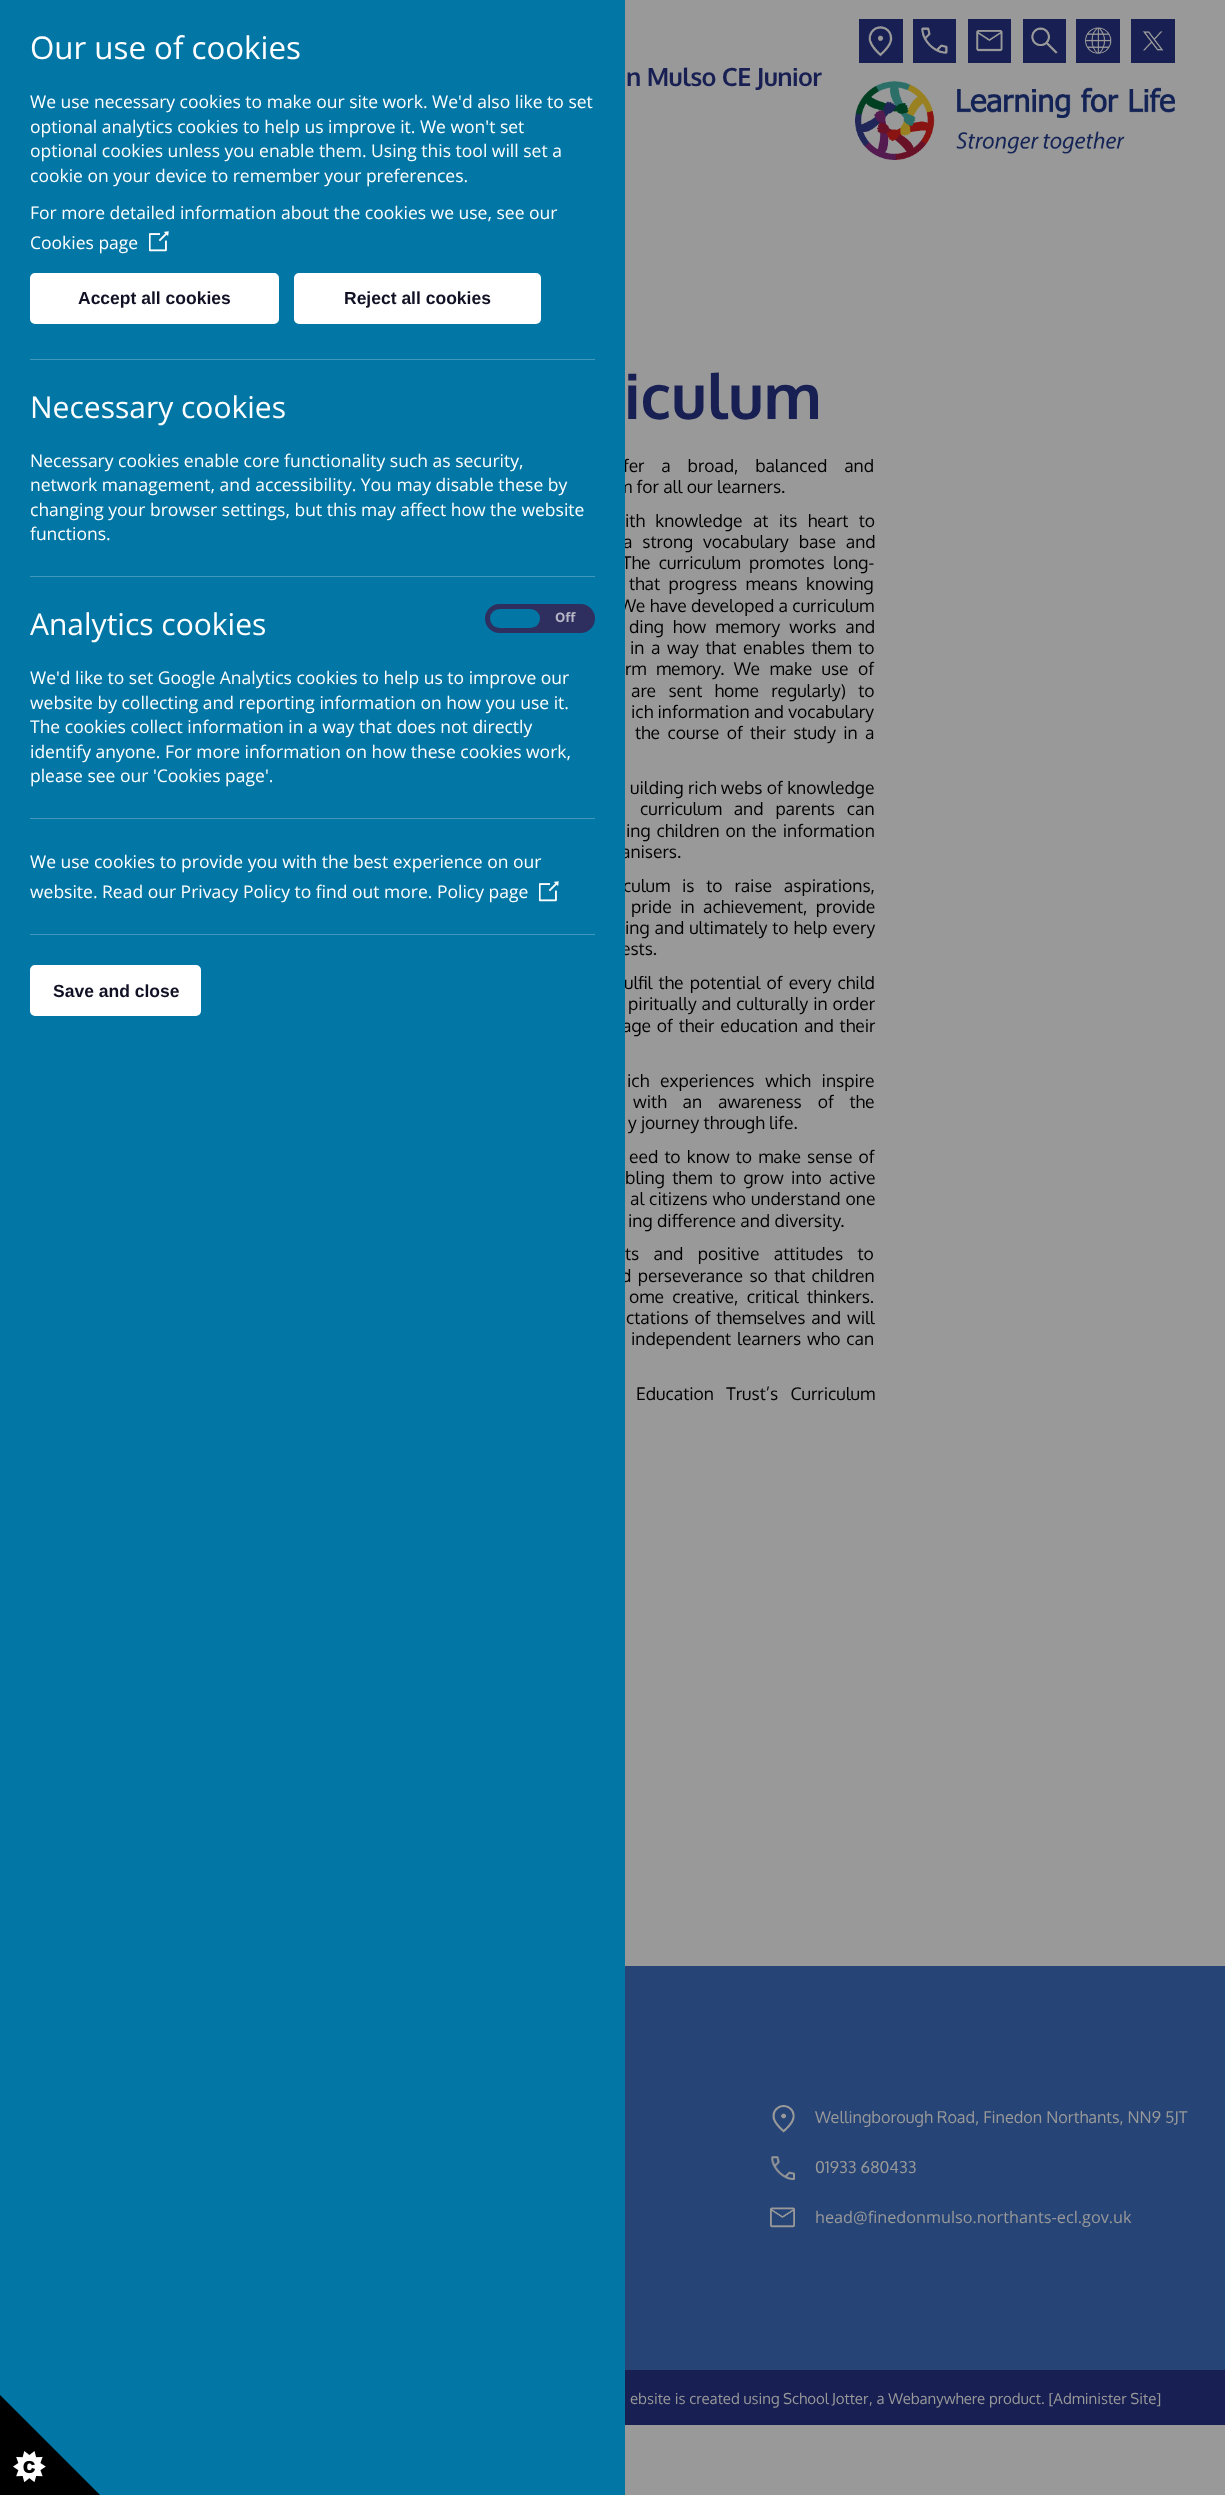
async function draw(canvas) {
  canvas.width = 1225;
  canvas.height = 2495;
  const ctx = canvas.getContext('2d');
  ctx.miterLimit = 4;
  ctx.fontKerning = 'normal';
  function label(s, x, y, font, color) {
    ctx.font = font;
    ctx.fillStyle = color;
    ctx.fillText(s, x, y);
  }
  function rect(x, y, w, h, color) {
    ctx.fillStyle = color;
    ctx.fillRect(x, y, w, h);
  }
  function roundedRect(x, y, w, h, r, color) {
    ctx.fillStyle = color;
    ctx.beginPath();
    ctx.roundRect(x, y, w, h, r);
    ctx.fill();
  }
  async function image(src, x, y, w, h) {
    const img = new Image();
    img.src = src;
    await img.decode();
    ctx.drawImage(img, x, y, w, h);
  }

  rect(0, 0, 1225, 2495, '#999');
  rect(625, 1966, 600, 404, '#264476');
  rect(625, 2370, 600, 55, '#171f53');
  ctx.wordSpacing = '12.5px';
  label('fer a broad, balanced and', 623, 472, '17.5px Oxygen', '#000');
  ctx.wordSpacing = '0px';
  label('m for all our learners.', 617, 493, '17.5px Oxygen', '#000');
  ctx.wordSpacing = '5.5px';
  label('a strong vocabulary base and', 623, 548, '17.5px Oxygen', '#000');
  ctx.wordSpacing = '4px';
  label('The curriculum promotes long-', 622, 569, '17.5px Oxygen', '#000');
  ctx.wordSpacing = '0px';
  label('We have developed a curriculum', 619, 612, '17.5px Oxygen', '#000');
  label('anisers.', 621, 858, '17.5px Oxygen', '#000');
  ctx.wordSpacing = '7.5px';
  label('culum is to raise aspirations,', 623, 892, '17.5px Oxygen', '#000');
  ctx.wordSpacing = '0px';
  label('ests.', 621, 955, '17.5px Oxygen', '#000');
  ctx.wordSpacing = '1.75px';
  label('ulfil the potential of every child', 624, 989, '17.5px Oxygen', '#000');
  ctx.wordSpacing = '1.5px';
  label('age of their education and their', 622, 1032, '17.5px Oxygen', '#000');
  ctx.wordSpacing = '2px';
  label('d perseverance so that children', 621, 1282, '17.5px Oxygen', '#000');
  rect(0, 0, 625, 2495, '#0276a5');
  ctx.wordSpacing = '0px';
  label('Our use of cookies', 30, 59, '31.25px Open Sans', '#fff');
  label('We use necessary cookies to make our site work. We\'d also like to set', 30, 108, '17.5px Open Sans', '#fff');
  label('optional analytics cookies to help us improve it. We won\'t set', 30, 133, '17.5px Open Sans', '#fff');
  label('optional cookies unless you enable them. Using this tool will set a', 30, 157, '17.5px Open Sans', '#fff');
  label('cookie on your device to remember your preferences.', 30, 182, '17.5px Open Sans', '#fff');
  label('For more detailed information about the cookies we use, see our', 30, 219, '17.5px Open Sans', '#fff');
  label('Cookies page', 30, 249, '17.5px Open Sans', '#fff');
  await image('assets/img1.png', 149, 231, 20, 21);
  ctx.beginPath();
  ctx.roundRect(31.5, 274.5, 246, 48, 3.5);
  ctx.fill();
  ctx.strokeStyle = '#fff';
  ctx.lineWidth = 3;
  ctx.stroke();
  label('Accept all cookies', 78, 304, 'bold 17.5px Liberation Sans', '#111125');
  ctx.fillStyle = '#fff';
  ctx.beginPath();
  ctx.roundRect(295.5, 274.5, 244, 48, 3.5);
  ctx.fill();
  ctx.stroke();
  label('Reject all cookies', 344, 304, 'bold 17.5px Liberation Sans', '#111125');
  rect(30, 359, 565, 1, '#4198bc');
  label('Necessary cookies', 30, 418, '30px Open Sans', '#fff');
  label('Necessary cookies enable core functionality such as security,', 30, 467, '17.5px Open Sans', '#fff');
  label('network management, and accessibility. You may disable these by', 30, 491, '17.5px Open Sans', '#fff');
  label('changing your browser settings, but this may affect how the website', 30, 516, '17.5px Open Sans', '#fff');
  label('functions.', 30, 540, '17.5px Open Sans', '#fff');
  rect(30, 576, 565, 1, '#4198bc');
  label('Analytics cookies', 30, 635, '30px Open Sans', '#fff');
  ctx.fillStyle = '#2f2f5f';
  ctx.beginPath();
  ctx.roundRect(487.5, 606.5, 105, 24, 12);
  ctx.fill();
  ctx.strokeStyle = '#2f2f5f';
  ctx.lineWidth = 5;
  ctx.stroke();
  roundedRect(490, 609, 50, 19, 9.5, '#0276a5');
  label('Off', 555, 622, 'bold 13px Open Sans', '#b6b6c7');
  label('We\'d like to set Google Analytics cookies to help us to improve our', 30, 684, '17.5px Open Sans', '#fff');
  label('website by collecting and reporting information on how you use it.', 30, 709, '17.5px Open Sans', '#fff');
  label('The cookies collect information in a way that does not directly', 30, 733, '17.5px Open Sans', '#fff');
  label('identify anyone. For more information on how these cookies work,', 30, 758, '17.5px Open Sans', '#fff');
  label('please see our \'Cookies page\'.', 30, 782, '17.5px Open Sans', '#fff');
  rect(30, 818, 565, 1, '#4198bc');
  label('We use cookies to provide you with the best experience on our', 30, 868, '17.5px Open Sans', '#fff');
  label('website. Read our Privacy Policy to find out more. Policy page', 30, 898, '17.5px Open Sans', '#fff');
  await image('assets/img1.png', 539, 881, 20, 21);
  rect(30, 934, 565, 1, '#4198bc');
  ctx.fillStyle = '#fff';
  ctx.beginPath();
  ctx.roundRect(31.5, 966.5, 168, 48, 3.5);
  ctx.fill();
  ctx.strokeStyle = '#fff';
  ctx.lineWidth = 3;
  ctx.stroke();
  label('Save and close', 53, 997, 'bold 17.5px Liberation Sans', '#111125');
  await image('assets/img2.png', 0, 2395, 100, 100);
  label('ebsite is created using', 630, 2404, '15px Oxygen', '#999');
  ctx.wordSpacing = '-1px';
  label('School Jotter', 783, 2404, '15px Oxygen', '#999');
  ctx.wordSpacing = '0px';
  label(', a Webanywhere product. [Administer Site]', 869, 2404, '15px Oxygen', '#999');
  await image('assets/img3.png', 772, 2105, 23, 28);
  label('Wellingborough Road, Finedon Northants, NN9 5JT', 815, 2123, '16.25px Oxygen', '#999');
  await image('assets/img4.png', 771, 2156, 24, 24);
  label('01933 680433', 815, 2173, '16.25px Oxygen', '#999');
  await image('assets/img5.png', 770, 2207, 25, 21);
  label('head@finedonmulso.northants-ecl.gov.uk', 815, 2223, '16.25px Open Sans', '#999');
  ctx.letterSpacing = '-0.6px';
  label('n Mulso CE Junior', 626, 86, 'bold 25px Oxygen', '#171f53');
  rect(859, 19, 44, 44, '#171f53');
  await image('assets/img6.png', 868, 26, 25, 31);
  rect(913, 19, 43, 44, '#171f53');
  await image('assets/img7.png', 921, 27, 27, 27);
  rect(968, 19, 43, 44, '#171f53');
  await image('assets/img8.png', 976, 30, 27, 22);
  rect(1023, 19, 43, 44, '#171f53');
  await image('assets/img9.png', 1031, 27, 27, 27);
  rect(1076, 19, 44, 44, '#171f53');
  await image('assets/img10.png', 1085, 27, 27, 27);
  rect(1131, 19, 44, 44, '#171f53');
  await image('assets/img11.png', 1142, 31, 22, 20);
  await image('assets/img12.png', 855, 81, 320, 79);
  ctx.letterSpacing = '0px';
  label('iculum', 624, 419, 'bold 62.5px Oxygen', '#171f53');
  ctx.wordSpacing = '6px';
  label('ith knowledge at its heart to', 625, 527, '17.5px Oxygen', '#000');
  ctx.wordSpacing = '4px';
  label('that progress means knowing', 629, 590, '17.5px Oxygen', '#000');
  ctx.wordSpacing = '4.5px';
  label('ding how memory works and', 629, 633, '17.5px Oxygen', '#000');
  ctx.wordSpacing = '2.25px';
  label('in a way that enables them to', 630, 654, '17.5px Oxygen', '#000');
  ctx.wordSpacing = '5px';
  label('rm memory. We make use of', 625, 675, '17.5px Oxygen', '#000');
  ctx.wordSpacing = '8px';
  label('are sent home regularly) to', 631, 697, '17.5px Oxygen', '#000');
  ctx.wordSpacing = '0px';
  label('ich information and vocabulary', 631, 718, '17.5px Oxygen', '#000');
  ctx.wordSpacing = '3px';
  label('the course of their study in a', 635, 739, '17.5px Oxygen', '#000');
  ctx.wordSpacing = '0px';
  label('uilding rich webs of knowledge', 630, 794, '17.5px Oxygen', '#000');
  ctx.wordSpacing = '7.5px';
  label('curriculum and parents can', 640, 815, '17.5px Oxygen', '#000');
  ctx.wordSpacing = '1.5px';
  label('ing children on the information', 626, 837, '17.5px Oxygen', '#000');
  ctx.wordSpacing = '4px';
  label('pride in achievement, provide', 631, 913, '17.5px Oxygen', '#000');
  ctx.wordSpacing = '0.5px';
  label('ing and ultimately to help every', 625, 934, '17.5px Oxygen', '#000');
  label('piritually and culturally in order', 628, 1010, '17.5px Oxygen', '#000');
  ctx.wordSpacing = '6.5px';
  label('ich experiences which inspire', 627, 1087, '17.5px Oxygen', '#000');
  ctx.wordSpacing = '11.5px';
  label('with an awareness of the', 633, 1108, '17.5px Oxygen', '#000');
  ctx.wordSpacing = '0px';
  label('y journey through life.', 628, 1129, '17.5px Oxygen', '#000');
  ctx.wordSpacing = '1.75px';
  label('eed to know to make sense of', 629, 1163, '17.5px Oxygen', '#000');
  ctx.wordSpacing = '3px';
  label('bling them to grow into active', 625, 1184, '17.5px Oxygen', '#000');
  ctx.wordSpacing = '0.5px';
  label('al citizens who understand one', 630, 1205, '17.5px Oxygen', '#000');
  ctx.wordSpacing = '0px';
  label('ing difference and diversity.', 628, 1227, '17.5px Oxygen', '#000');
  ctx.wordSpacing = '10px';
  label('ts and positive attitudes to', 625, 1260, '17.5px Oxygen', '#000');
  ctx.wordSpacing = '4px';
  label('ome creative, critical thinkers.', 629, 1303, '17.5px Oxygen', '#000');
  ctx.wordSpacing = '1.5px';
  label('ctations of themselves and will', 626, 1324, '17.5px Oxygen', '#000');
  label('independent learners who can', 631, 1345, '17.5px Oxygen', '#000');
  ctx.wordSpacing = '8px';
  label('Education Trust’s Curriculum', 636, 1400, '17.5px Oxygen', '#000');
}

draw(document.querySelector('canvas'));
